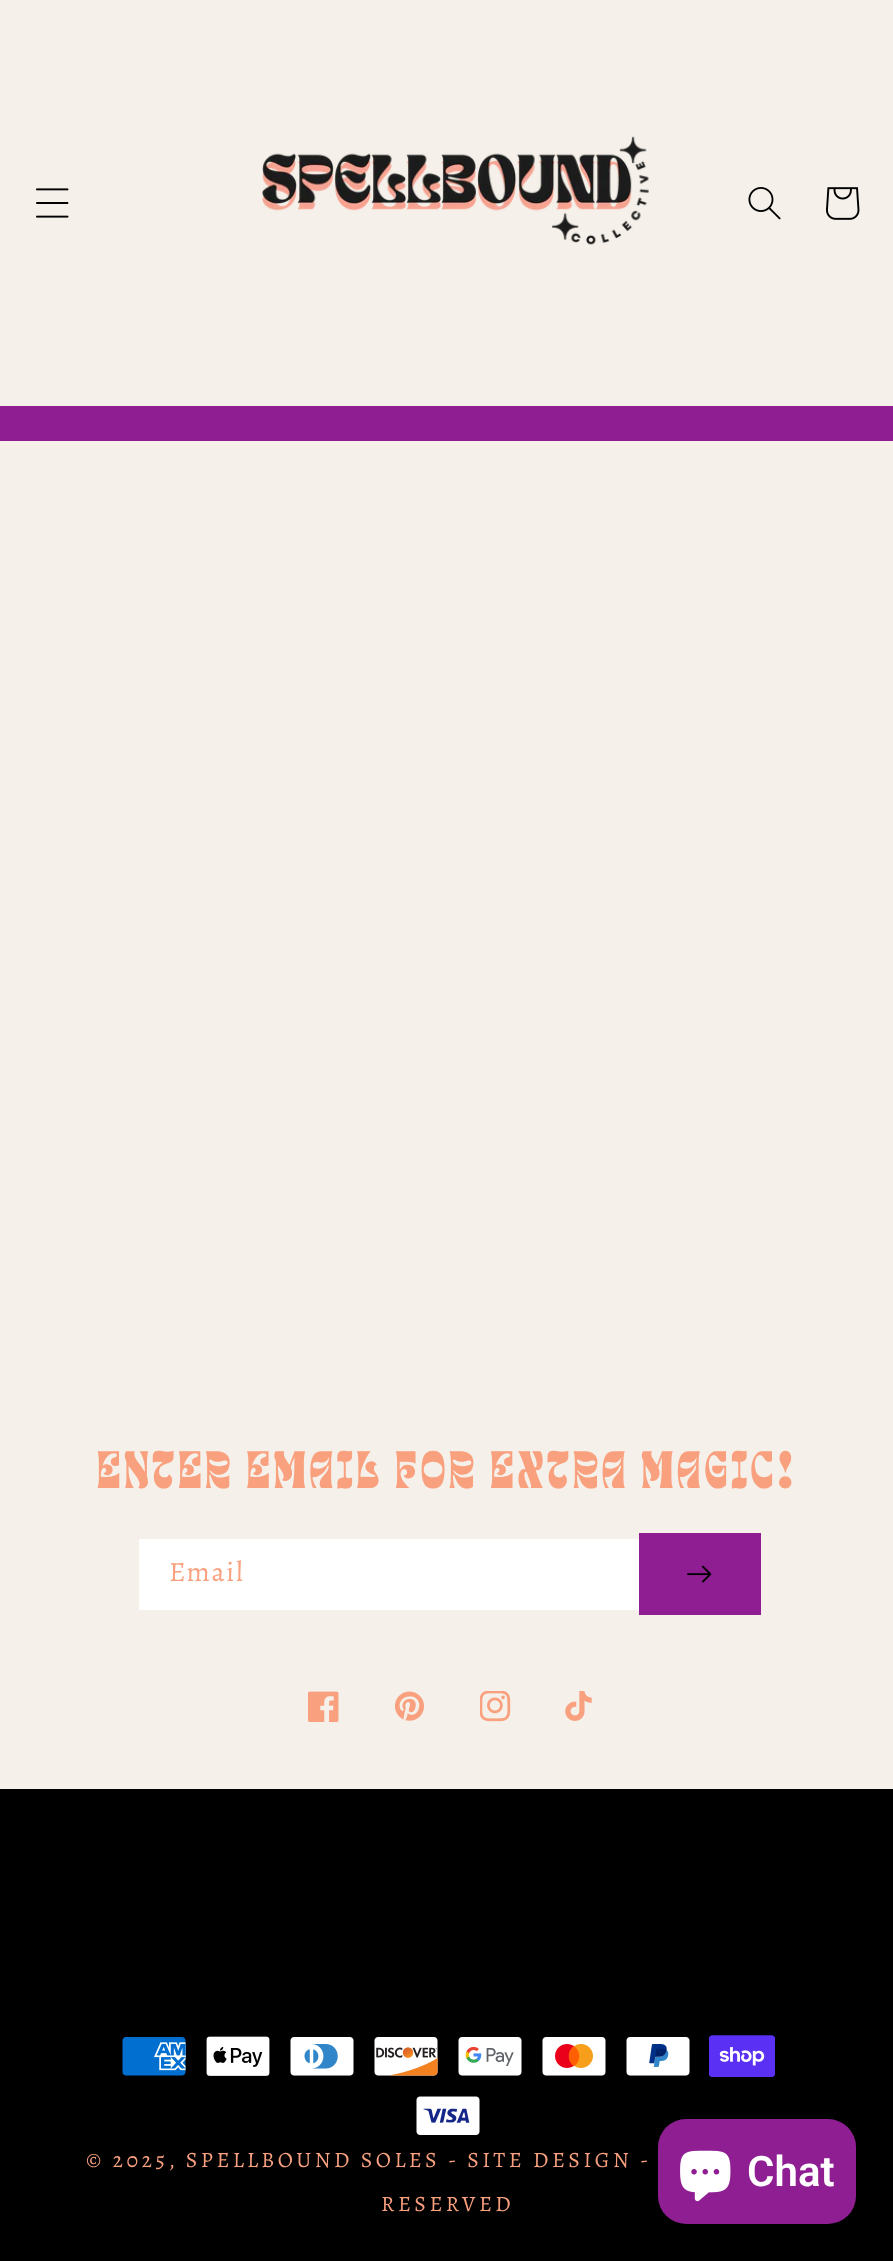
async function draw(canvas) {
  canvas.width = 893;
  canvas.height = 2261;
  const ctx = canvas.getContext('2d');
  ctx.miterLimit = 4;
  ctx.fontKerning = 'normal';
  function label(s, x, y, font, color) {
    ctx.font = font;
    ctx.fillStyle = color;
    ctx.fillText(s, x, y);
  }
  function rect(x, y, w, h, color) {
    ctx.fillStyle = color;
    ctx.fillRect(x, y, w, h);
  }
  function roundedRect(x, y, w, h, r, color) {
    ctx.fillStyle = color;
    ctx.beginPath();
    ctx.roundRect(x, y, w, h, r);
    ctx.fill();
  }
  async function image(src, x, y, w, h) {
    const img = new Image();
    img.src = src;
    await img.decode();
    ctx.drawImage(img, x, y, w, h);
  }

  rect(0, 0, 893, 2261, '#f5f0e9');
  rect(0, 406, 893, 35, '#901e93');
  await image('assets/img1.png', 36, 188, 33, 30);
  await image('assets/img2.png', 262, 136, 387, 109);
  await image('assets/img3.png', 748, 187, 33, 33);
  await image('assets/img4.png', 826, 187, 34, 33);
  ctx.letterSpacing = '3.5px';
  label('ENTER EMAIL FOR EXTRA MAGIC!', 97, 1488, '300 36.75px "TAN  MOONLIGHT"', '#f9a17f');
  rect(139, 1539, 500, 71, '#fff');
  rect(639, 1533, 122, 82, '#901e93');
  await image('assets/img5.png', 687, 1565, 25, 18);
  ctx.letterSpacing = '1.75px';
  label('Email', 169, 1581, '28px Alegreya', '#f9a17f');
  await image('assets/img6.png', 308, 1691, 31, 31);
  await image('assets/img7.png', 394, 1691, 30, 30);
  await image('assets/img8.png', 480, 1691, 31, 31);
  await image('assets/img9.png', 565, 1691, 27, 30);
  rect(0, 1789, 893, 472, '#000');
  await image('assets/img10.png', 122, 2037, 64, 39);
  await image('assets/img11.png', 206, 2036, 64, 40);
  await image('assets/img12.png', 290, 2037, 64, 39);
  await image('assets/img13.png', 374, 2037, 64, 39);
  await image('assets/img14.png', 458, 2037, 64, 39);
  await image('assets/img15.png', 542, 2037, 64, 39);
  await image('assets/img16.png', 626, 2037, 64, 39);
  await image('assets/img17.png', 709, 2035, 66, 42);
  await image('assets/img18.png', 416, 2096, 64, 39);
  ctx.letterSpacing = '3.5px';
  label('© 2025, SPELLBOUND SOLES', 86, 2167, '21.9px Alegreya', '#f9a17f');
  label('- SITE DESIGN', 448, 2167, '21.9px Alegreya', '#f9a17f');
  label('-', 640, 2167, '21.9px Alegreya', '#f9a17f');
  label('RESERVED', 381, 2211, '21.9px Alegreya', '#f9a17f');
  roundedRect(658, 2119, 198, 105, 28, '#901e93');
  await image('assets/img19.png', 680, 2150, 51, 52);
  ctx.letterSpacing = '0px';
  label('Chat', 747, 2186, '600 42px Roboto', '#fff');
}

draw(document.querySelector('canvas'));
